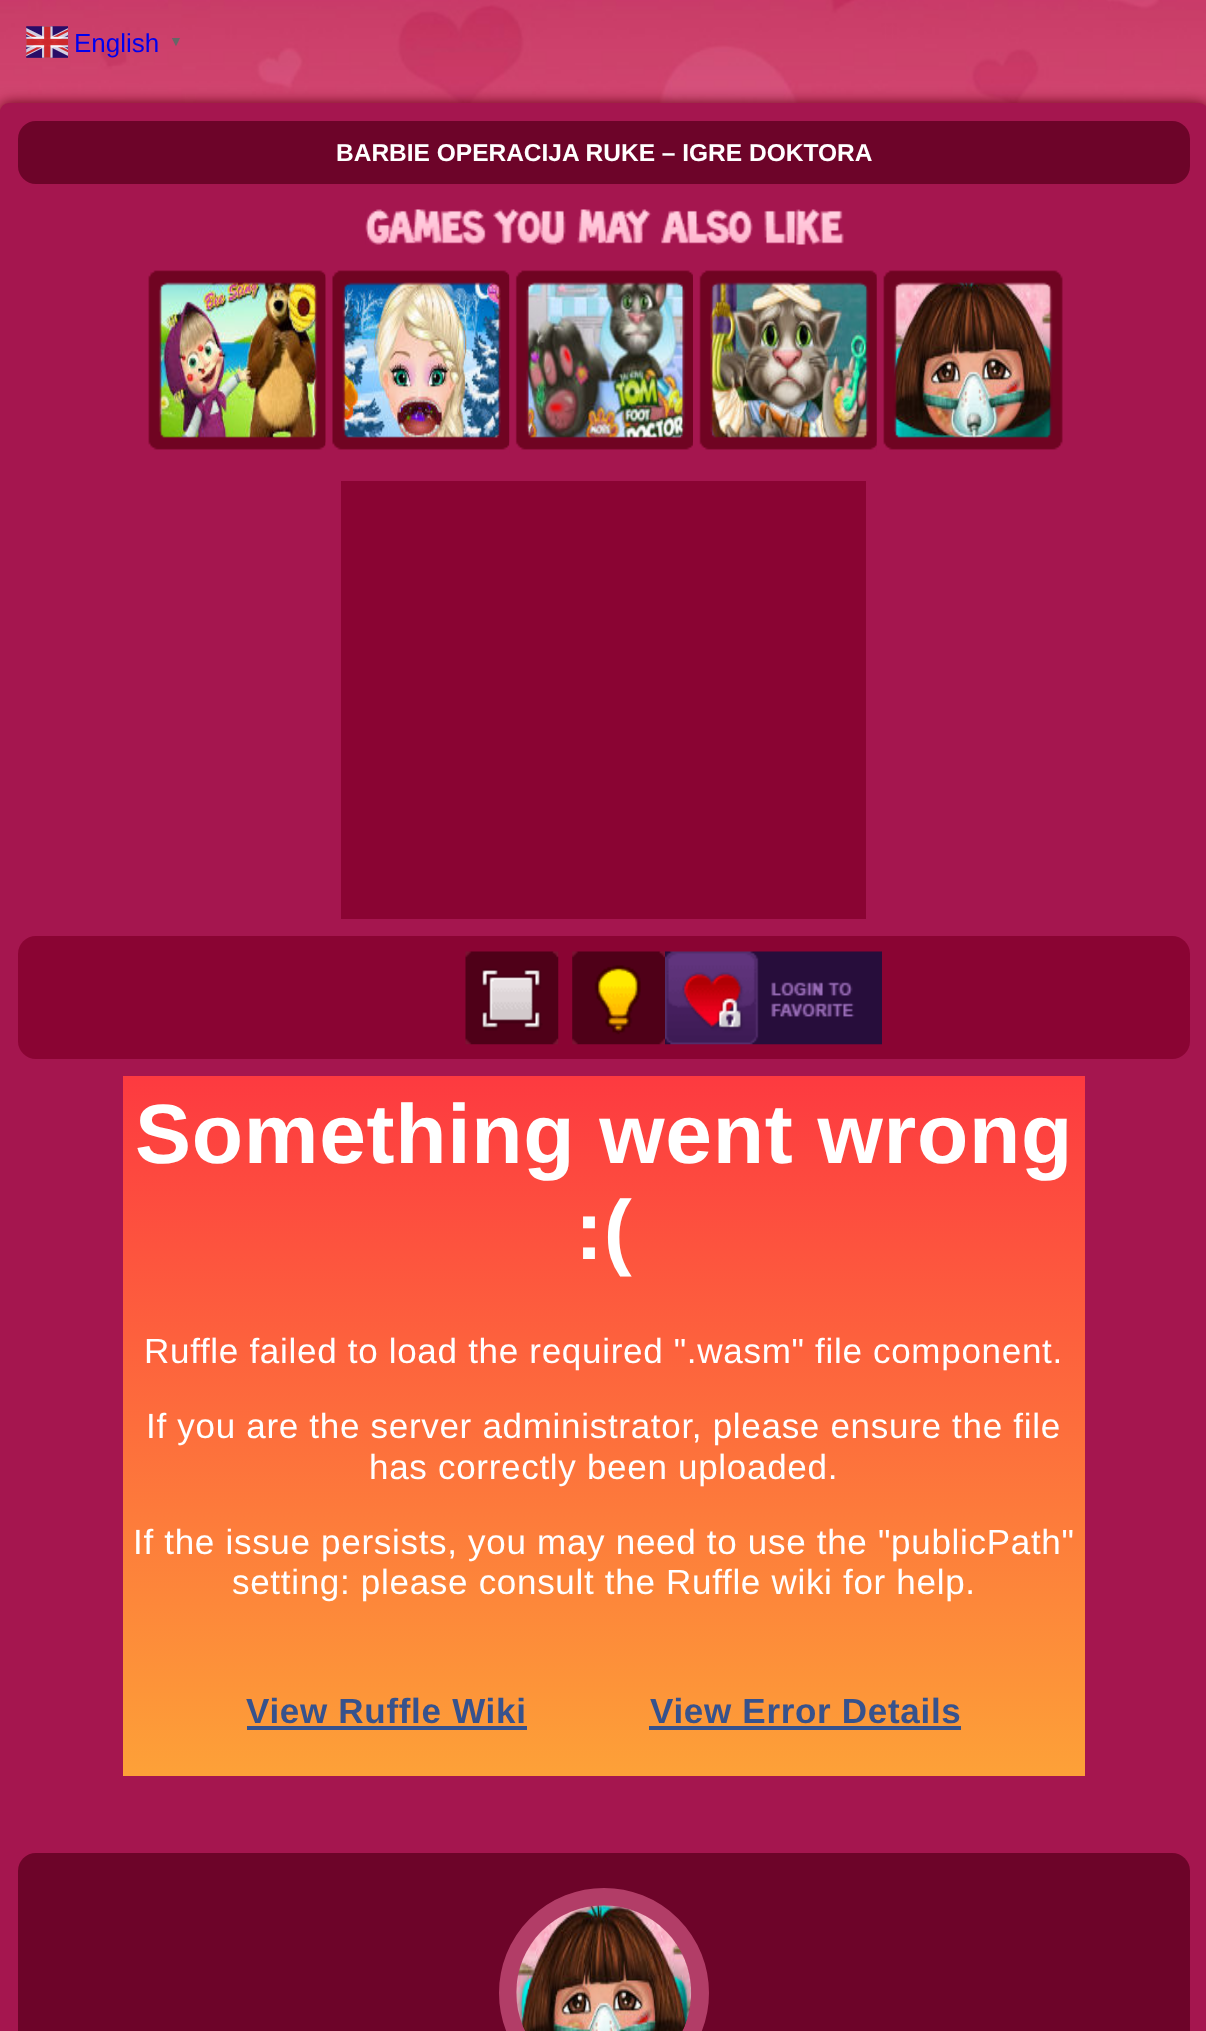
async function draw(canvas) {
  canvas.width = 1206;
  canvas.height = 2031;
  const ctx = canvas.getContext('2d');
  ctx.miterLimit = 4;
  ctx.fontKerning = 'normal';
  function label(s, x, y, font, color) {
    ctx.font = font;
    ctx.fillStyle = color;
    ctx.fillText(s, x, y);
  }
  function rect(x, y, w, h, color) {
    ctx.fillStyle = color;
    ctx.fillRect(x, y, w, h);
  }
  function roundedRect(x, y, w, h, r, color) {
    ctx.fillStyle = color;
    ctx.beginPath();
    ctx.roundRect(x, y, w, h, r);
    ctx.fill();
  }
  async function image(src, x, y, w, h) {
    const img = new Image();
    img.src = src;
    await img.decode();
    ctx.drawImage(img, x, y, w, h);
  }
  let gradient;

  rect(0, 0, 1206, 2031, '#fff');
  await image('assets/img1.png', 0, 0, 1206, 112);
  await image('assets/img2.png', 26, 26, 42, 32);
  label('English', 74, 52, '26px Liberation Sans', '#00e');
  label('▼', 169, 46, 'bold 14px Liberation Sans', '#666');
  ctx.fillStyle = '#660014';
  ctx.filter = 'blur(7px)';
  ctx.beginPath();
  ctx.roundRect(0, 103, 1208, 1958, 9);
  ctx.fill();
  ctx.filter = 'none';
  roundedRect(0, 103, 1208, 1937, 9, '#a5164f');
  roundedRect(18, 121, 1172, 63, 18, '#6d0429');
  label('BARBIE OPERACIJA RUKE – IGRE DOKTORA', 336, 161, 'bold 24.5px Liberation Sans', '#fff');
  await image('assets/img3.png', 365, 209, 479, 36);
  await image('assets/img5.png', 158, 282, 160, 156);
  await image('assets/img4.png', 147, 270, 179, 183);
  await image('assets/img7.png', 342, 282, 159, 156);
  await image('assets/img6.png', 325, 270, 185, 183);
  await image('assets/img9.png', 526, 282, 159, 156);
  await image('assets/img8.png', 509, 270, 184, 183);
  await image('assets/img11.png', 710, 282, 159, 156);
  await image('assets/img10.png', 693, 270, 184, 183);
  await image('assets/img13.png', 893, 282, 160, 156);
  await image('assets/img12.png', 876, 270, 188, 183);
  rect(341, 481, 525, 438, '#8a0433');
  roundedRect(18, 936, 1172, 123, 18, '#8a0433');
  await image('assets/img14.png', 465, 951, 94, 94);
  await image('assets/img15.png', 572, 951, 93, 94);
  await image('assets/img16.png', 665, 951, 217, 94);
  gradient = ctx.createLinearGradient(604, 1076, 604, 1776);
  gradient.addColorStop(0, '#fd3a40');
  gradient.addColorStop(1, '#fda138');
  ctx.fillStyle = gradient;
  ctx.fillRect(123, 1076, 962, 700);
  ctx.letterSpacing = '0.7px';
  label('Something went wrong', 135, 1163, 'bold 84px Liberation Sans', '#fff');
  label(':(', 575, 1259, 'bold 84px Liberation Sans', '#fff');
  label('Ruffle failed to load the required ".wasm" file component.', 144, 1363, '35px Liberation Sans', '#fff');
  label('If you are the server administrator, please ensure the file', 146, 1438, '35px Liberation Sans', '#fff');
  label('has correctly been uploaded.', 369, 1479, '35px Liberation Sans', '#fff');
  label('If the issue persists, you may need to use the "publicPath"', 133, 1554, '35px Liberation Sans', '#fff');
  label('setting: please consult the Ruffle wiki for help.', 232, 1594, '35px Liberation Sans', '#fff');
  label('View Ruffle Wiki', 246, 1723, 'bold 35px Liberation Sans', '#37528c');
  rect(247, 1726, 280, 4, '#37528c');
  label('View Error Details', 650, 1723, 'bold 35px Liberation Sans', '#37528c');
  rect(649, 1726, 312, 4, '#37528c');
  roundedRect(18, 1853, 1172, 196, 18, '#6d0429');
  ctx.beginPath();
  ctx.arc(604, 1993, 96, 0, 2 * Math.PI);
  ctx.strokeStyle = '#b23d67';
  ctx.lineWidth = 18;
  ctx.stroke();
  await image('assets/img17.png', 516, 1905, 176, 126);
}

draw(document.querySelector('canvas'));
